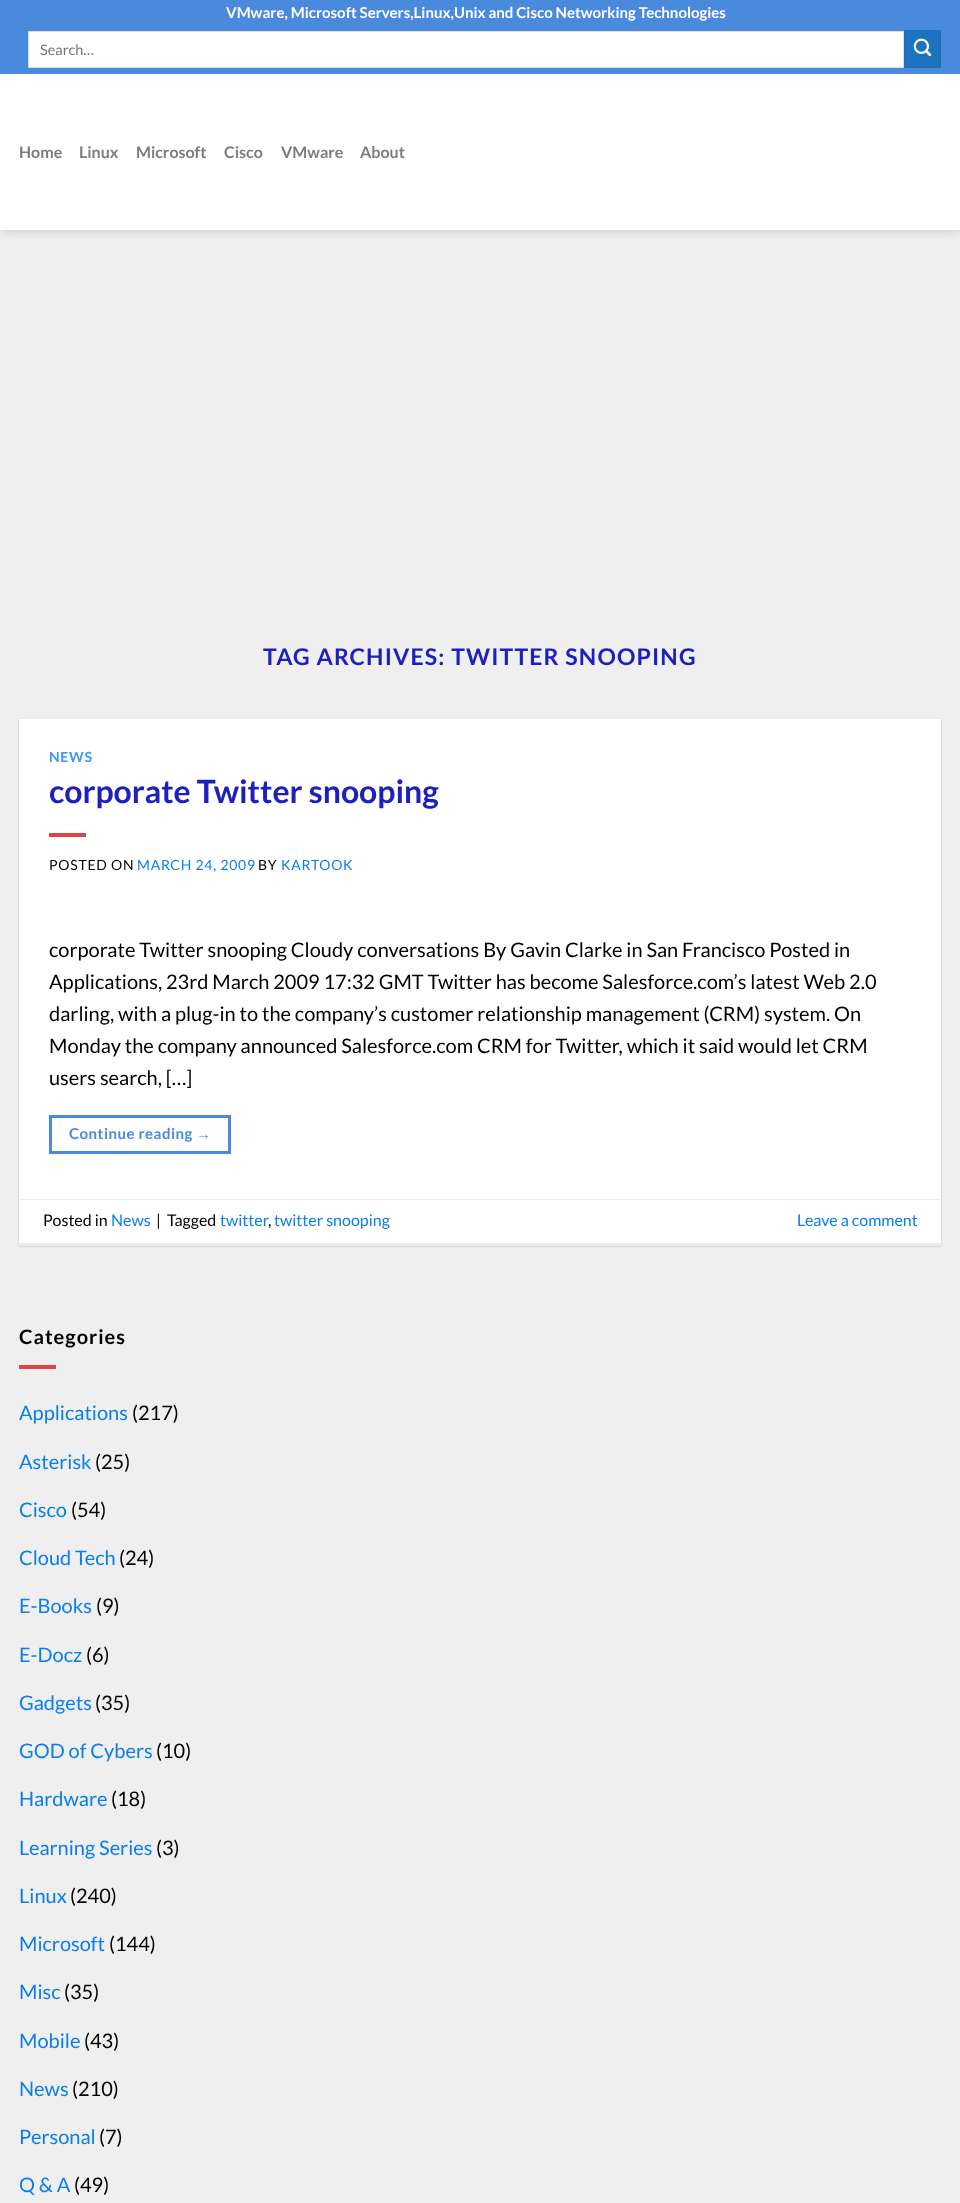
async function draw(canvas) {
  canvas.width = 960;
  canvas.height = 2203;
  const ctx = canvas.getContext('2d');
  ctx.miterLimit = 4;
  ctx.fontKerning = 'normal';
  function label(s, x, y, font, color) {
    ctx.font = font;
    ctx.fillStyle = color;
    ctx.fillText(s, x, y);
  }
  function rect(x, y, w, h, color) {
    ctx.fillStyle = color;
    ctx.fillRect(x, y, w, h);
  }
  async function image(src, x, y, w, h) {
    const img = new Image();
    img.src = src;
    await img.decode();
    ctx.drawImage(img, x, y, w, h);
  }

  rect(0, 0, 960, 2203, '#fff');
  rect(0, 230, 960, 1973, '#efefef');
  ctx.save();
  ctx.beginPath();
  ctx.rect(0, 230, 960, 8);
  ctx.clip();
  ctx.fillStyle = '#00000026';
  ctx.filter = 'blur(6px)';
  ctx.beginPath();
  ctx.rect(1, 1, 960, 230);
  ctx.fill();
  ctx.filter = 'none';
  ctx.restore();
  rect(0, 0, 960, 74, '#4a8add');
  label('VMware, Microsoft Servers,Linux,Unix and Cisco Networking Technologies', 226, 18, 'bold 15px Lato', '#fff');
  ctx.beginPath();
  ctx.rect(28.5, 31.5, 875, 36);
  ctx.fill();
  ctx.strokeStyle = '#ddd';
  ctx.stroke();
  label('Search…', 40, 55, '14.5px Lato', '#757575');
  ctx.fillStyle = '#1e73be';
  ctx.beginPath();
  ctx.rect(904.5, 30.5, 36, 37);
  ctx.fill();
  ctx.strokeStyle = '#1d6db5';
  ctx.stroke();
  await image('assets/img1.png', 913, 38, 19, 19);
  label('Home', 19, 158, 'bold 16px Lato', '#7d7d7d');
  label('Linux', 79, 158, 'bold 16px Lato', '#7d7d7d');
  label('Microsoft', 136, 158, 'bold 16px Lato', '#7d7d7d');
  label('Cisco', 224, 158, 'bold 16px Lato', '#7d7d7d');
  label('VMware', 281, 158, 'bold 16px Lato', '#7d7d7d');
  label('About', 360, 158, 'bold 16px Lato', '#7d7d7d');
  ctx.letterSpacing = '1.15px';
  label('TAG ARCHIVES: TWITTER SNOOPING', 263, 665, 'bold 23px Lato', '#1d20bd');
  ctx.fillStyle = '#0000003d';
  ctx.filter = 'blur(1px)';
  ctx.beginPath();
  ctx.rect(19, 720, 922, 526);
  ctx.fill();
  ctx.filter = 'none';
  rect(19, 719, 922, 524, '#fff');
  ctx.letterSpacing = '0.75px';
  label('NEWS', 49, 762, 'bold 14px Lato', '#3c98ed');
  ctx.letterSpacing = '0px';
  label('corporate Twitter snooping', 49, 803, 'bold 32px Lato', '#1d20bd');
  rect(49, 833, 37, 4, '#d44');
  ctx.letterSpacing = '0.75px';
  label('POSTED ON', 49, 870, '14px Lato', '#000');
  label('MARCH 24, 2009', 137, 870, '14px Lato', '#0b7ee9');
  label('BY', 258, 870, '14px Lato', '#000');
  label('KARTOOK', 281, 870, '14px Lato', '#0b7ee9');
  ctx.letterSpacing = '0px';
  label('corporate Twitter snooping Cloudy conversations By Gavin Clarke in San Francisco Posted in', 49, 957, '20px Lato', '#000');
  label('Applications, 23rd March 2009 17:32 GMT Twitter has become Salesforce.com’s latest Web 2.0', 49, 989, '20px Lato', '#000');
  label('darling, with a plug-in to the company’s customer relationship management (CRM) system. On', 49, 1021, '20px Lato', '#000');
  label('Monday the company announced Salesforce.com CRM for Twitter, which it said would let CRM', 49, 1053, '20px Lato', '#000');
  label('users search, […]', 49, 1085, '20px Lato', '#000');
  ctx.strokeStyle = '#4a8add';
  ctx.lineWidth = 3;
  ctx.strokeRect(50.5, 1116.5, 179, 36);
  ctx.letterSpacing = '0.5px';
  label('Continue reading', 69, 1139, 'bold 15px Lato', '#4a8add');
  label('→', 196, 1139, 'bold 15px Liberation Sans', '#4a8add');
  rect(19, 1199, 922, 1, '#ececec');
  rect(19, 1243, 922, 3, '#ececec');
  ctx.letterSpacing = '0px';
  label('Posted in', 43, 1226, '16px Lato', '#000');
  label('News', 111, 1226, '16px Lato', '#0b7ee9');
  label('|', 156, 1226, '16px Lato', '#000');
  label('Tagged', 167, 1226, '16px Lato', '#000');
  label('twitter', 220, 1226, '16px Lato', '#0b7ee9');
  label(',', 268, 1226, '16px Lato', '#000');
  label('twitter snooping', 274, 1226, '16px Lato', '#0b7ee9');
  label('Leave a comment', 797, 1226, '16px Lato', '#0b7ee9');
  ctx.letterSpacing = '1px';
  label('Categories', 19, 1344, 'bold 20px Lato', '#000');
  rect(19, 1365, 37, 4, '#d44');
  ctx.letterSpacing = '0px';
  label('Applications', 19, 1420, '20px Lato', '#0b7ee9');
  label('(217)', 132, 1420, '20px Lato', '#000');
  rect(19, 1436, 922, 1, '#ececec');
  label('Asterisk', 19, 1469, '20px Lato', '#0b7ee9');
  label('(25)', 95, 1469, '20px Lato', '#000');
  rect(19, 1485, 922, 1, '#ececec');
  label('Cisco', 19, 1517, '20px Lato', '#0b7ee9');
  label('(54)', 71, 1517, '20px Lato', '#000');
  rect(19, 1533, 922, 1, '#ececec');
  label('Cloud Tech', 19, 1565, '20px Lato', '#0b7ee9');
  label('(24)', 119, 1565, '20px Lato', '#000');
  rect(19, 1581, 922, 1, '#ececec');
  label('E-Books', 19, 1613, '20px Lato', '#0b7ee9');
  label('(9)', 96, 1613, '20px Lato', '#000');
  rect(19, 1629, 922, 1, '#ececec');
  label('E-Docz', 19, 1662, '20px Lato', '#0b7ee9');
  label('(6)', 86, 1662, '20px Lato', '#000');
  rect(19, 1678, 922, 1, '#ececec');
  label('Gadgets', 19, 1710, '20px Lato', '#0b7ee9');
  label('(35)', 95, 1710, '20px Lato', '#000');
  rect(19, 1726, 922, 1, '#ececec');
  label('GOD of Cybers', 19, 1758, '20px Lato', '#0b7ee9');
  label('(10)', 156, 1758, '20px Lato', '#000');
  rect(19, 1774, 922, 1, '#ececec');
  label('Hardware', 19, 1806, '20px Lato', '#0b7ee9');
  label('(18)', 111, 1806, '20px Lato', '#000');
  rect(19, 1823, 922, 1, '#ececec');
  label('Learning Series', 19, 1855, '20px Lato', '#0b7ee9');
  label('(3)', 156, 1855, '20px Lato', '#000');
  rect(19, 1870, 922, 1, '#ececec');
  label('Linux', 19, 1903, '20px Lato', '#0b7ee9');
  label('(240)', 70, 1903, '20px Lato', '#000');
  rect(19, 1919, 922, 1, '#ececec');
  label('Microsoft', 19, 1951, '20px Lato', '#0b7ee9');
  label('(144)', 109, 1951, '20px Lato', '#000');
  rect(19, 1966, 922, 1, '#ececec');
  label('Misc', 19, 1999, '20px Lato', '#0b7ee9');
  label('(35)', 64, 1999, '20px Lato', '#000');
  rect(19, 2015, 922, 1, '#ececec');
  label('Mobile', 19, 2048, '20px Lato', '#0b7ee9');
  label('(43)', 84, 2048, '20px Lato', '#000');
  rect(19, 2064, 922, 1, '#ececec');
  label('News', 19, 2096, '20px Lato', '#0b7ee9');
  label('(210)', 72, 2096, '20px Lato', '#000');
  rect(19, 2111, 922, 1, '#ececec');
  label('Personal', 19, 2144, '20px Lato', '#0b7ee9');
  label('(7)', 99, 2144, '20px Lato', '#000');
  rect(19, 2160, 922, 1, '#ececec');
  label('Q & A', 19, 2192, '20px Lato', '#0b7ee9');
  label('(49)', 74, 2192, '20px Lato', '#000');
}

draw(document.querySelector('canvas'));
